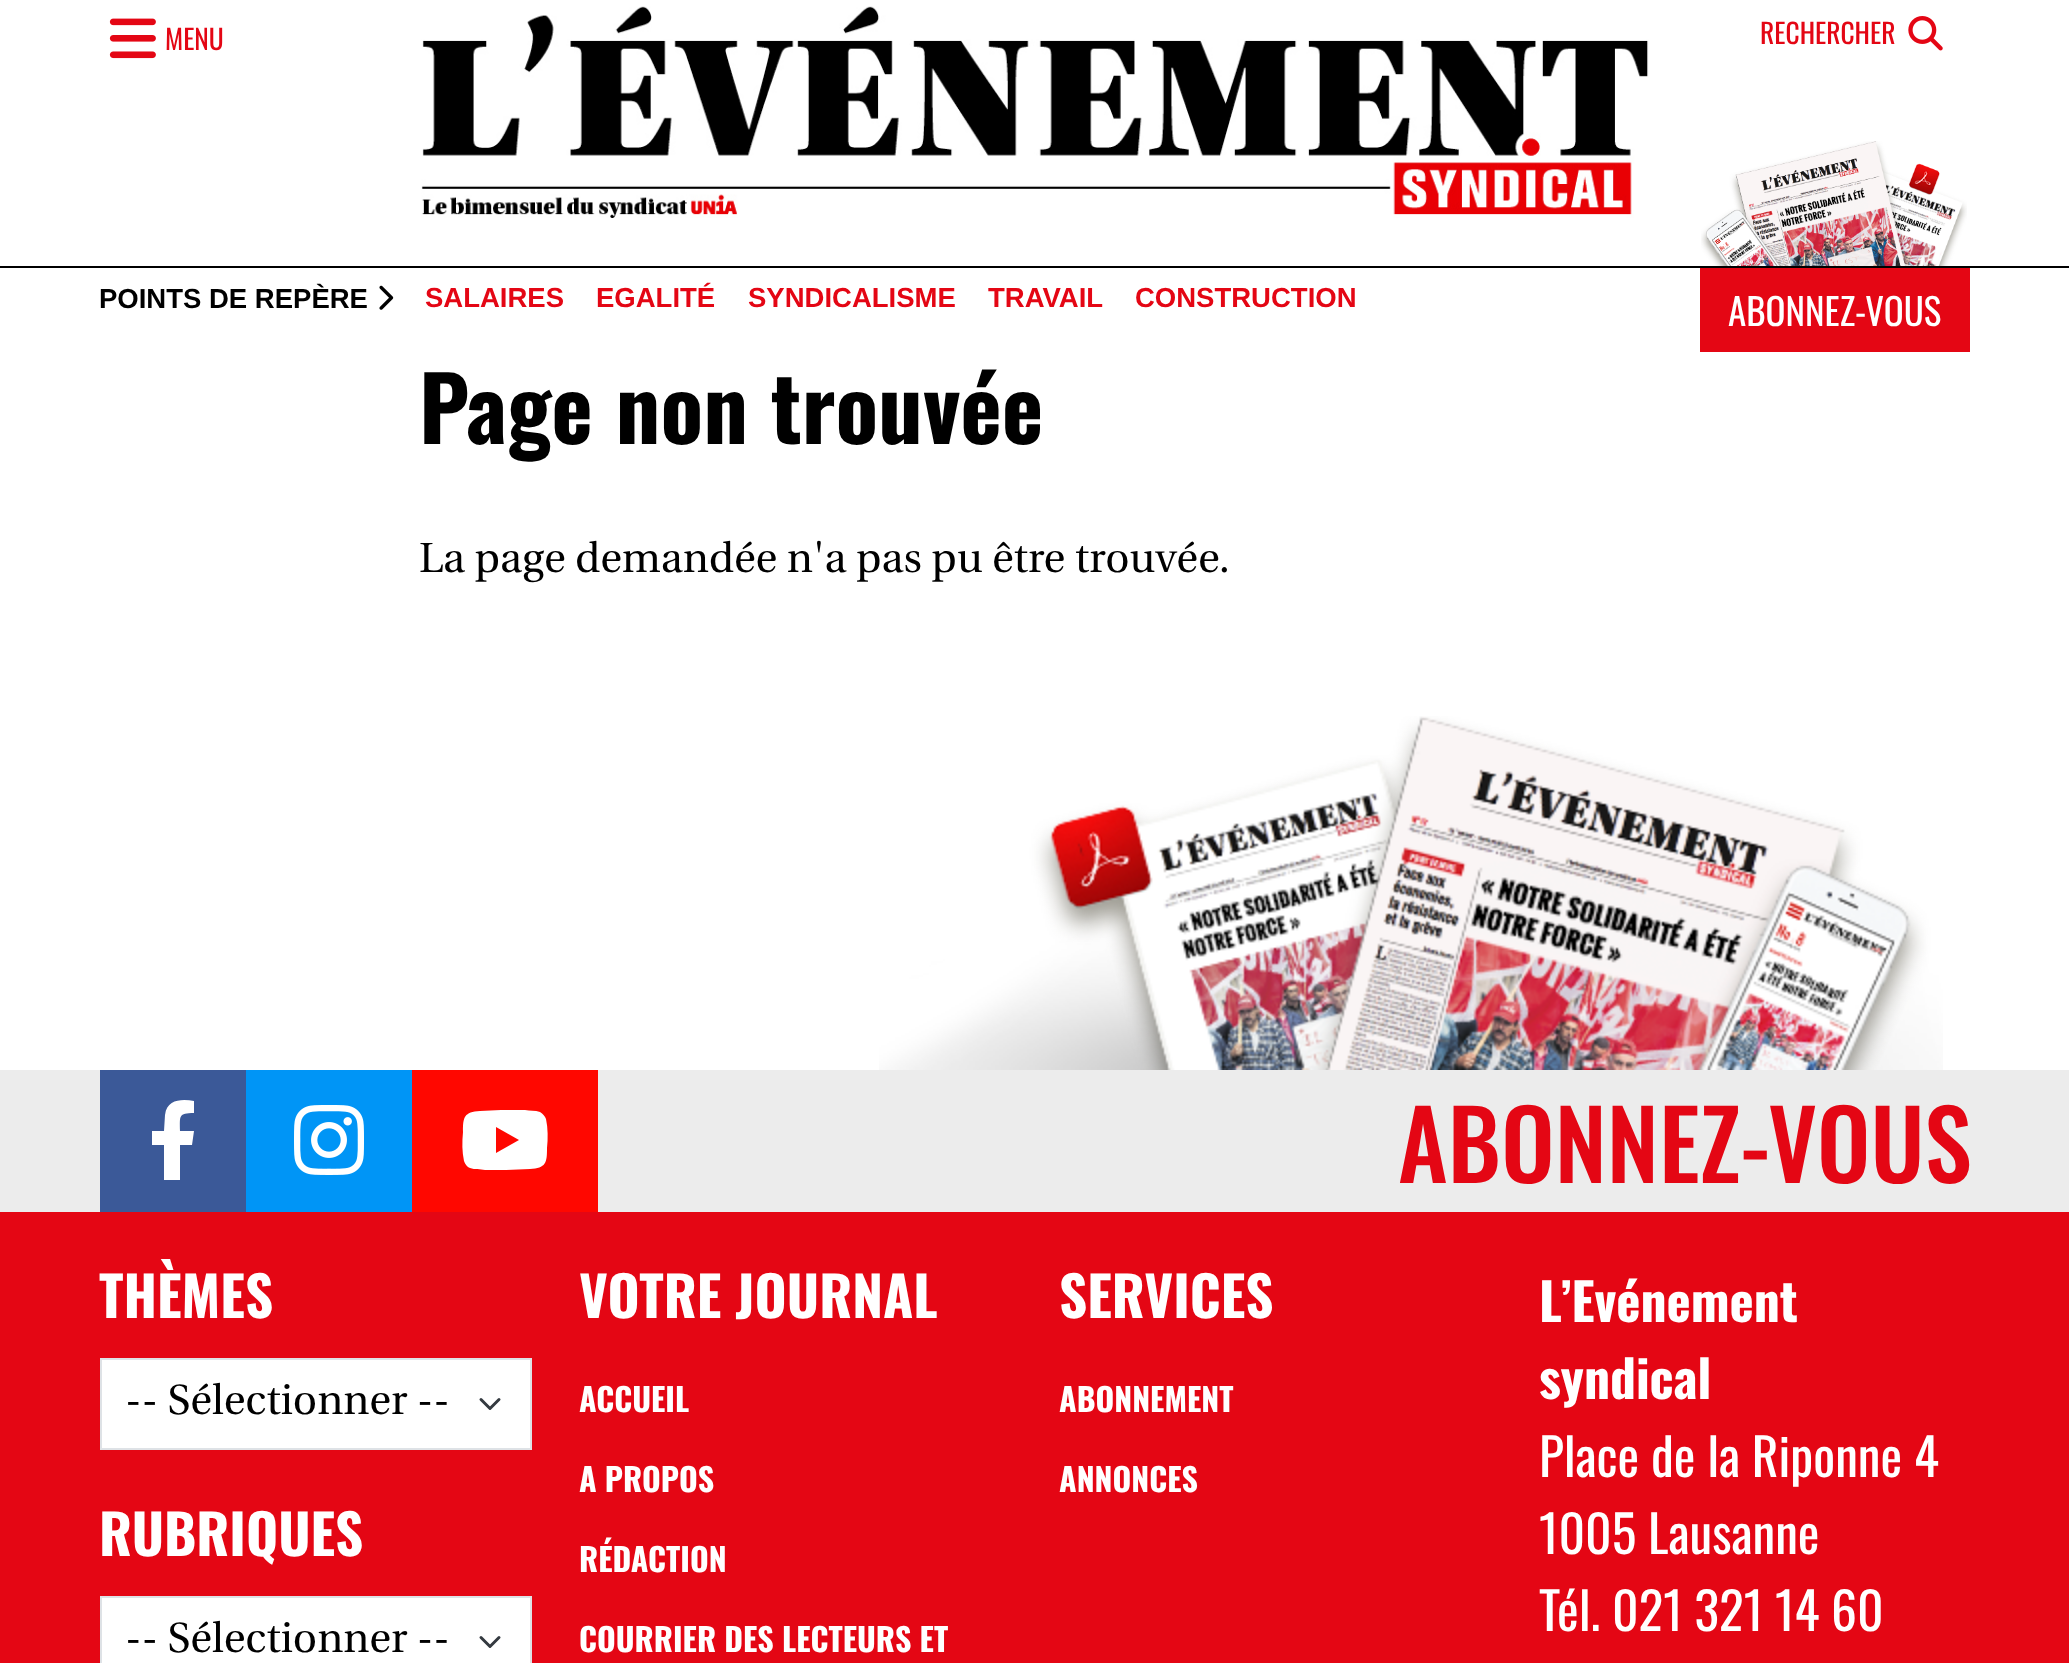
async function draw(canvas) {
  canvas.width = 2069;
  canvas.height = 1663;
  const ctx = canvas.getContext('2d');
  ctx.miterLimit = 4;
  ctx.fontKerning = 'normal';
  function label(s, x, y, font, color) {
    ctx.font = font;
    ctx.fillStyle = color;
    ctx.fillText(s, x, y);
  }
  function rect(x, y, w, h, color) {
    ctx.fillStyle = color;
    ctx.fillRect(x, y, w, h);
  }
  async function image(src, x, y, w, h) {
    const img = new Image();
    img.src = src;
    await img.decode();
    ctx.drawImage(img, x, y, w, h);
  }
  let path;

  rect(0, 0, 2069, 1663, '#fff');
  rect(0, 266, 2069, 2, '#000');
  await image('assets/img1.png', 109, 18, 47, 41);
  label('MENU', 165, 50, '27.5px Oswald', '#e40614');
  await image('assets/img2.png', 421, 6, 1228, 212);
  label('RECHERCHER', 1760, 44, '27.5px Oswald', '#e40614');
  await image('assets/img3.png', 1908, 16, 35, 35);
  await image('assets/img4.png', 1701, 141, 266, 125);
  label('POINTS DE REPÈRE', 99, 308, 'bold 27.5px Liberation Sans', '#000');
  await image('assets/img5.png', 379, 285, 15, 25);
  label('SALAIRES', 425, 307, 'bold 27.5px Liberation Sans', '#e40614');
  label('EGALITÉ', 596, 307, 'bold 27.5px Liberation Sans', '#e40614');
  label('SYNDICALISME', 748, 307, 'bold 27.5px Liberation Sans', '#e40614');
  label('TRAVAIL', 988, 307, 'bold 27.5px Liberation Sans', '#e40614');
  label('CONSTRUCTION', 1135, 307, 'bold 27.5px Liberation Sans', '#e40614');
  rect(1700, 268, 270, 84, '#e40614');
  label('ABONNEZ-VOUS', 1728, 326, '37px Oswald', '#fff');
  label('Page non trouvée', 419, 444, 'bold 88.5px Oswald', '#000');
  label('La page demandée n\'a pas pu être trouvée.', 419, 572, '42.1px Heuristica', '#000');
  await image('assets/img6.png', 879, 716, 1064, 354);
  rect(0, 1070, 2069, 142, '#ececec');
  rect(100, 1070, 146, 142, '#3b5998');
  ctx.fillStyle = '#fff';
  path = new Path2D('M192 1145L194 1131H180C180 1116 178 1113 194 1113V1101C182 1099 167 1099 165 1115L164 1131H152V1145H164V1180H180V1145Z');
  ctx.fill(path);
  rect(246, 1070, 166, 142, '#0095f6');
  await image('assets/img7.png', 294, 1105, 70, 70);
  rect(412, 1070, 186, 142, '#ff0700');
  ctx.fillStyle = '#fff';
  path = new Path2D('M546 1119C545 1116 543 1114 540 1112C535 1110 530 1111 525 1110H501L480 1111C464 1112 463 1117 463 1132C462 1142 462 1152 464 1161C465 1164 467 1167 470 1168C475 1170 480 1169 485 1170H506L530 1169C546 1168 547 1163 547 1148C548 1139 548 1128 546 1119ZM496 1153V1127L519 1140Z');
  ctx.fill(path);
  label('ABONNEZ-VOUS', 1398, 1183, '500 95.5px Oswald', '#e40614');
  rect(0, 1212, 2069, 451, '#e40614');
  label('THÈMES', 99, 1318, 'bold 55px Oswald', '#fff');
  rect(102, 1360, 428, 88, '#fff');
  path = new Path2D('M481 1399.5L490 1408.5L499 1399.5');
  ctx.strokeStyle = '#343a40';
  ctx.lineWidth = 3;
  ctx.lineCap = 'round';
  ctx.lineJoin = 'round';
  ctx.stroke(path);
  ctx.strokeStyle = '#dee2e6';
  ctx.lineWidth = 2;
  ctx.lineJoin = 'miter';
  ctx.strokeRect(101, 1359, 430, 90);
  label('-- Sélectionner --', 125, 1414, '42.1px Heuristica', '#000');
  label('RUBRIQUES', 99, 1556, 'bold 55px Oswald', '#fff');
  rect(102, 1598, 428, 65, '#fff');
  path = new Path2D('M481 1637.5L490 1646.5L499 1637.5');
  ctx.strokeStyle = '#343a40';
  ctx.lineWidth = 3;
  ctx.lineJoin = 'round';
  ctx.stroke(path);
  ctx.strokeStyle = '#dee2e6';
  ctx.lineWidth = 2;
  ctx.lineJoin = 'miter';
  ctx.strokeRect(101, 1597, 430, 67);
  label('-- Sélectionner --', 125, 1652, '42.1px Heuristica', '#000');
  label('VOTRE JOURNAL', 579, 1318, 'bold 55px Oswald', '#fff');
  label('ACCUEIL', 579, 1412, 'bold 32px Oswald', '#fff');
  label('A PROPOS', 579, 1492, 'bold 32px Oswald', '#fff');
  label('RÉDACTION', 579, 1572, 'bold 32px Oswald', '#fff');
  label('COURRIER DES LECTEURS ET', 579, 1652, 'bold 32px Oswald', '#fff');
  label('SERVICES', 1059, 1318, 'bold 55px Oswald', '#fff');
  label('ABONNEMENT', 1059, 1412, 'bold 32px Oswald', '#fff');
  label('ANNONCES', 1059, 1492, 'bold 32px Oswald', '#fff');
  label('L’Evénement', 1539, 1322, 'bold 51.5px Oswald', '#fff');
  label('syndical', 1539, 1399, 'bold 51.5px Oswald', '#fff');
  label('Place de la Riponne 4', 1539, 1477, '51.5px Oswald', '#fff');
  label('1005 Lausanne', 1539, 1554, '51.5px Oswald', '#fff');
  label('Tél. 021 321 14 60', 1539, 1631, '51.5px Oswald', '#fff');
}

draw(document.querySelector('canvas'));
